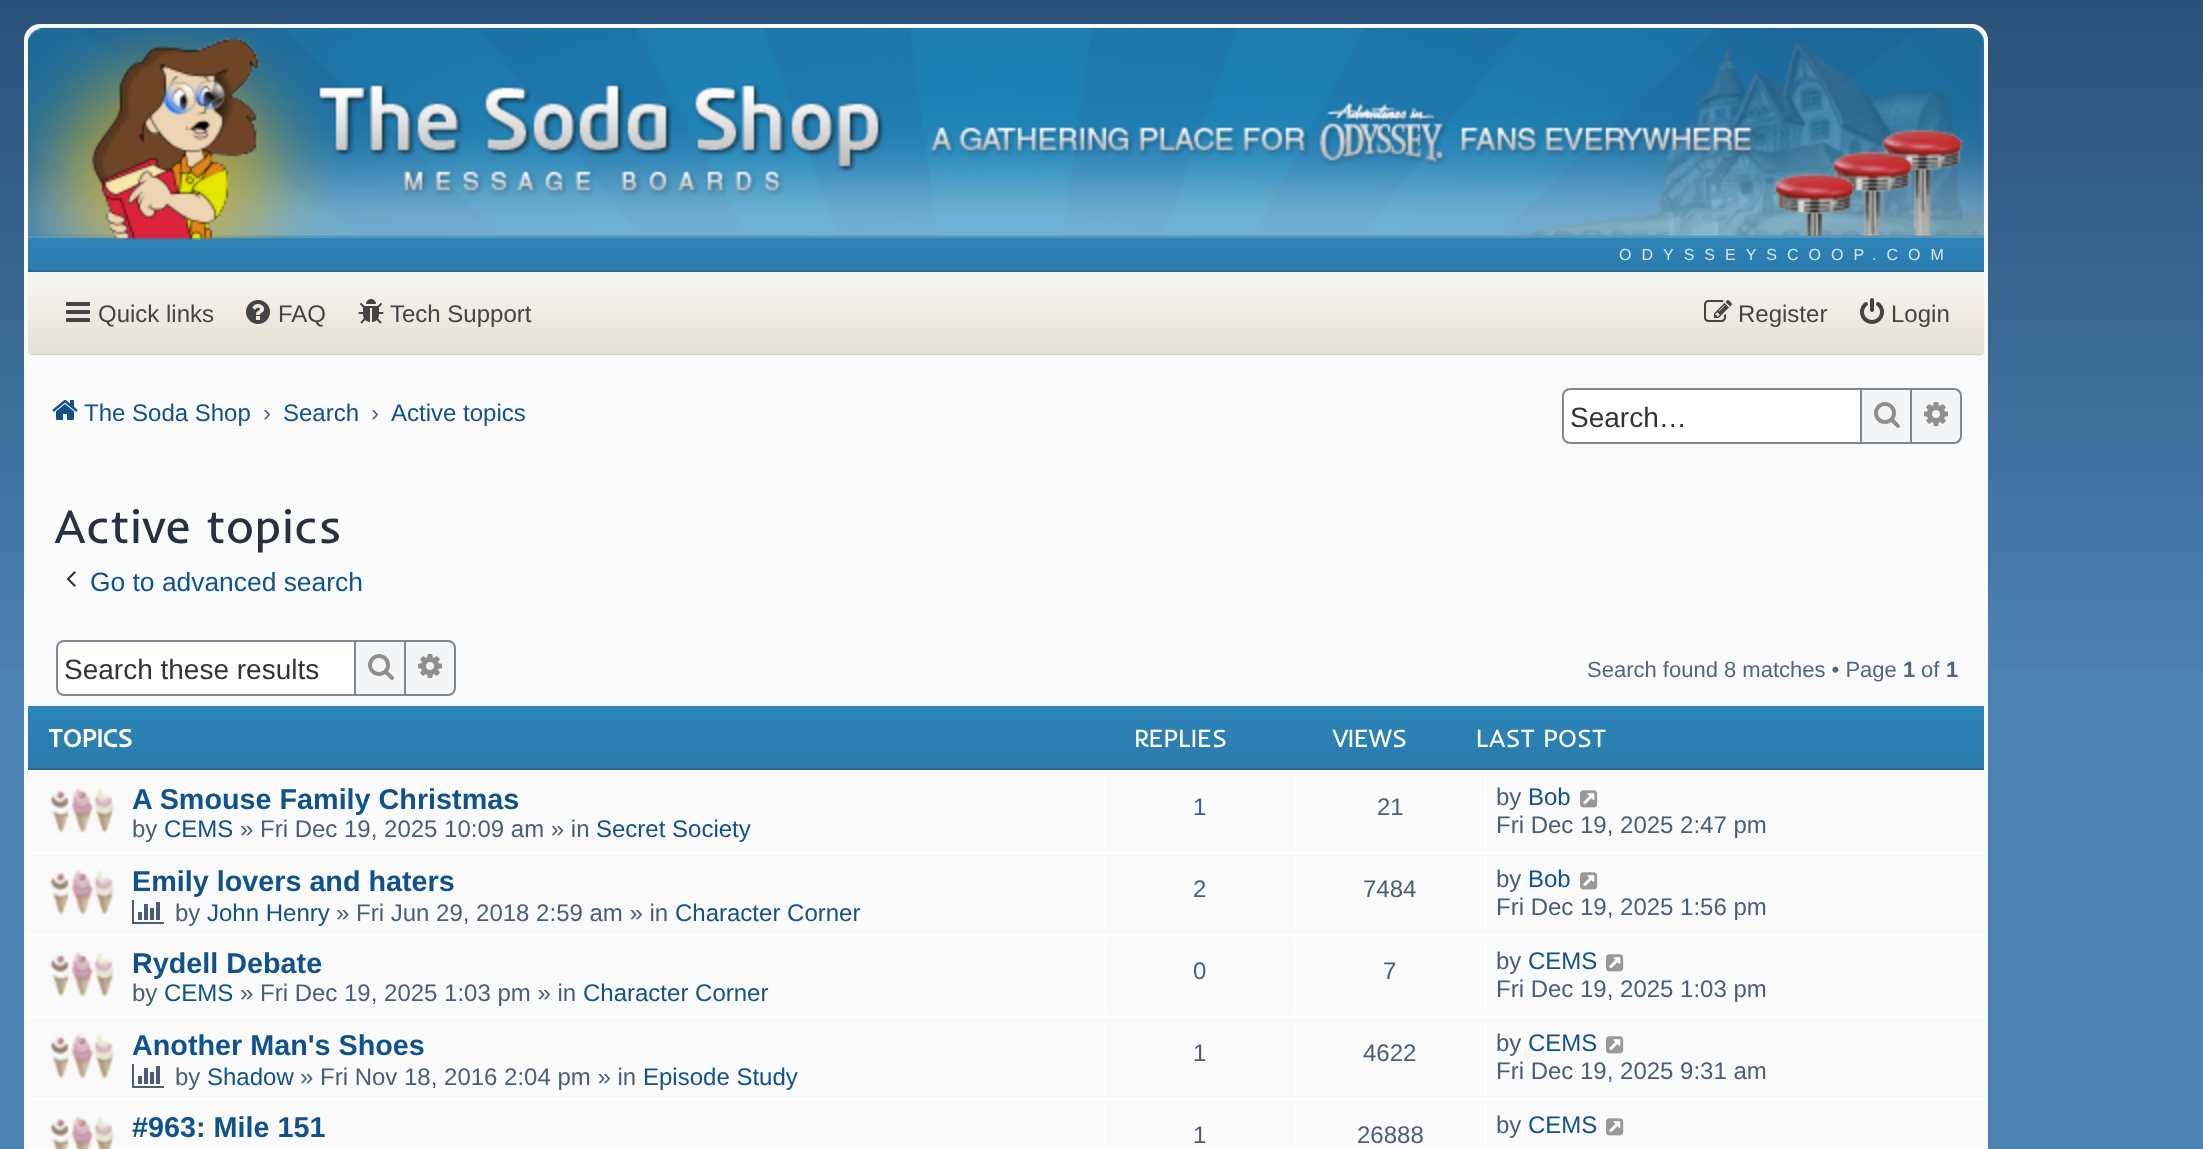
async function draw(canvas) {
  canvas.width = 2203;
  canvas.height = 1149;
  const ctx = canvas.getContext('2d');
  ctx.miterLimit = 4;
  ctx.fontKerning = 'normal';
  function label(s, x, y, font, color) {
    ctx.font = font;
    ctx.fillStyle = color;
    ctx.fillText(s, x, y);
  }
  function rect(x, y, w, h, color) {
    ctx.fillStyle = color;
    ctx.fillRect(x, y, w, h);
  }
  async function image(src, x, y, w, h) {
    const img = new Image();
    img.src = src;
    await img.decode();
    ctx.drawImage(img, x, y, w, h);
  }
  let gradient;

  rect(0, 0, 2203, 1149, '#4d83b2');
  gradient = ctx.createLinearGradient(1102, 0, 1102, 700);
  gradient.addColorStop(0, '#2a517a');
  gradient.addColorStop(1, '#4d83b2');
  ctx.fillStyle = gradient;
  ctx.fillRect(0, 0, 2203, 669);
  ctx.fillStyle = '#fafafa';
  ctx.beginPath();
  ctx.roundRect(26, 26, 1960, 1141, 14);
  ctx.fill();
  ctx.strokeStyle = '#fafafa';
  ctx.lineWidth = 4;
  ctx.stroke();
  await image('assets/img1.png', 28, 28, 1956, 208);
  gradient = ctx.createLinearGradient(1006, 238, 1006, 270);
  gradient.addColorStop(0, '#2e85b8');
  gradient.addColorStop(1, '#2a7bac');
  ctx.fillStyle = gradient;
  ctx.fillRect(28, 238, 1956, 32);
  rect(28, 236, 1956, 2, '#5595bd');
  await image('assets/img2.png', 28, 30, 307, 210);
  await image('assets/img3.png', 318, 84, 566, 112);
  await image('assets/img4.png', 931, 101, 824, 65);
  rect(28, 270, 1956, 2, '#256a93');
  ctx.letterSpacing = '10px';
  label('ODYSSEYSCOOP.COM', 1619, 260, '16px Liberation Sans', '#d5e6f0');
  ctx.fillStyle = '#00000080';
  ctx.filter = 'blur(1px)';
  ctx.beginPath();
  ctx.rect(30, 276, 1952, 78);
  ctx.fill();
  ctx.filter = 'none';
  gradient = ctx.createLinearGradient(1006, 272, 1006, 354);
  gradient.addColorStop(0, '#f3f3f3');
  gradient.addColorStop(0.3, '#f4f0e7');
  gradient.addColorStop(0.9, '#e7e2d6');
  gradient.addColorStop(1, '#e7e2d6');
  ctx.fillStyle = gradient;
  ctx.fillRect(28, 272, 1956, 82);
  await image('assets/img5.png', 66, 302, 24, 20);
  ctx.letterSpacing = '0px';
  label('Quick links', 98, 322, '24px Liberation Sans', '#444');
  await image('assets/img6.png', 246, 300, 24, 24);
  label('FAQ', 278, 322, '24px Liberation Sans', '#444');
  await image('assets/img7.png', 358, 299, 26, 25);
  label('Tech Support', 390, 322, '24px Liberation Sans', '#444');
  await image('assets/img8.png', 1704, 300, 28, 22);
  label('Register', 1738, 322, '24px Liberation Sans', '#444');
  await image('assets/img9.png', 1860, 298, 24, 26);
  label('Login', 1891, 322, '24px Liberation Sans', '#444');
  await image('assets/img10.png', 52, 400, 26, 20);
  label('The Soda Shop', 84, 421, '24px Liberation Sans', '#105289');
  label('›', 263, 421, '24px Liberation Sans', '#536482');
  label('Search', 283, 421, '24px Liberation Sans', '#105289');
  label('›', 371, 421, '24px Liberation Sans', '#536482');
  label('Active topics', 391, 421, '24px Liberation Sans', '#105289');
  ctx.fillStyle = '#fff';
  ctx.beginPath();
  ctx.roundRect(1563, 389, 298, 54, [7, 0, 0, 7]);
  ctx.fill();
  ctx.strokeStyle = '#7e8993';
  ctx.lineWidth = 2;
  ctx.stroke();
  label('Search…', 1570, 427, '28px Liberation Sans', '#333');
  ctx.fillStyle = '#f3f5f6';
  ctx.beginPath();
  ctx.rect(1861, 389, 50, 54);
  ctx.fill();
  ctx.stroke();
  await image('assets/img11.png', 1874, 402, 26, 26);
  ctx.beginPath();
  ctx.roundRect(1911, 389, 50, 54, [0, 7, 7, 0]);
  ctx.fill();
  ctx.stroke();
  await image('assets/img12.png', 1924, 402, 24, 24);
  label('Active topics', 54, 543, '48px Inder', '#28313f');
  await image('assets/img13.png', 66, 571, 10, 16);
  label('Go to advanced search', 90, 591, '26.4px Liberation Sans', '#105289');
  ctx.fillStyle = '#fff';
  ctx.beginPath();
  ctx.roundRect(57, 641, 298, 54, [7, 0, 0, 7]);
  ctx.fill();
  ctx.stroke();
  label('Search these results', 64, 679, '28px Liberation Sans', '#333');
  ctx.fillStyle = '#f3f5f6';
  ctx.beginPath();
  ctx.rect(355, 641, 50, 54);
  ctx.fill();
  ctx.stroke();
  await image('assets/img11.png', 368, 654, 26, 26);
  ctx.beginPath();
  ctx.roundRect(405, 641, 50, 54, [0, 7, 7, 0]);
  ctx.fill();
  ctx.stroke();
  await image('assets/img12.png', 418, 654, 24, 24);
  label('Search found 8 matches • Page', 1587, 677, '22px Liberation Sans', '#536482');
  label('1', 1903, 677, 'bold 22px Liberation Sans', '#536482');
  label('of', 1921, 677, '22px Liberation Sans', '#536482');
  label('1', 1946, 677, 'bold 22px Liberation Sans', '#536482');
  gradient = ctx.createLinearGradient(1006, 706, 1006, 768);
  gradient.addColorStop(0, '#2e85b8');
  gradient.addColorStop(1, '#2a7bac');
  ctx.fillStyle = gradient;
  ctx.fillRect(28, 706, 1956, 62);
  rect(28, 768, 1956, 2, '#256a93');
  label('TOPICS', 48, 747, 'bold 25.25px Inder', '#fff');
  label('REPLIES', 1134, 747, '25.25px Inder', '#fff');
  label('VIEWS', 1333, 747, '25.25px Inder', '#fff');
  label('LAST POST', 1476, 747, '25.25px Inder', '#fff');
  rect(28, 770, 1956, 2, '#fff');
  rect(28, 852, 1956, 2, '#fff');
  await image('assets/img14.png', 49, 787, 66, 46);
  label('A Smouse Family Christmas', 132, 809, 'bold 28.75px Liberation Sans', '#105289');
  label('by', 132, 837, '24px Liberation Sans', '#4c5d77');
  label('CEMS', 164, 837, '24px Liberation Sans', '#105289');
  label('» Fri Dec 19, 2025 10:09 am » in', 240, 837, '24px Liberation Sans', '#4c5d77');
  label('Secret Society', 596, 837, '24px Liberation Sans', '#105289');
  rect(1104, 776, 2, 72, '#fff');
  label('1', 1193, 815, '24px Liberation Sans', '#4c5d77');
  rect(1294, 776, 2, 72, '#fff');
  label('21', 1377, 815, '24px Liberation Sans', '#4c5d77');
  rect(1484, 776, 2, 72, '#fff');
  label('by', 1496, 805, '24px Liberation Sans', '#4c5d77');
  label('Bob', 1528, 805, '24px Liberation Sans', '#105289');
  await image('assets/img15.png', 1580, 790, 18, 18);
  label('Fri Dec 19, 2025 2:47 pm', 1496, 833, '24px Liberation Sans', '#4c5d77');
  rect(28, 934, 1956, 2, '#fff');
  await image('assets/img14.png', 49, 869, 66, 46);
  label('Emily lovers and haters', 132, 891, 'bold 28.75px Liberation Sans', '#105289');
  await image('assets/img16.png', 132, 900, 32, 24);
  label('by', 175, 921, '24px Liberation Sans', '#4c5d77');
  label('John Henry', 207, 921, '24px Liberation Sans', '#105289');
  label('» Fri Jun 29, 2018 2:59 am » in', 336, 921, '24px Liberation Sans', '#4c5d77');
  label('Character Corner', 675, 921, '24px Liberation Sans', '#105289');
  rect(1104, 858, 2, 72, '#fff');
  label('2', 1193, 897, '24px Liberation Sans', '#4c5d77');
  rect(1294, 858, 2, 72, '#fff');
  label('7484', 1363, 897, '24px Liberation Sans', '#4c5d77');
  rect(1484, 858, 2, 72, '#fff');
  label('by', 1496, 887, '24px Liberation Sans', '#4c5d77');
  label('Bob', 1528, 887, '24px Liberation Sans', '#105289');
  await image('assets/img15.png', 1580, 872, 18, 18);
  label('Fri Dec 19, 2025 1:56 pm', 1496, 915, '24px Liberation Sans', '#4c5d77');
  rect(28, 1016, 1956, 2, '#fff');
  await image('assets/img14.png', 49, 951, 66, 46);
  label('Rydell Debate', 132, 973, 'bold 28.75px Liberation Sans', '#105289');
  label('by', 132, 1001, '24px Liberation Sans', '#4c5d77');
  label('CEMS', 164, 1001, '24px Liberation Sans', '#105289');
  label('» Fri Dec 19, 2025 1:03 pm » in', 240, 1001, '24px Liberation Sans', '#4c5d77');
  label('Character Corner', 583, 1001, '24px Liberation Sans', '#105289');
  rect(1104, 940, 2, 72, '#fff');
  label('0', 1193, 979, '24px Liberation Sans', '#4c5d77');
  rect(1294, 940, 2, 72, '#fff');
  label('7', 1383, 979, '24px Liberation Sans', '#4c5d77');
  rect(1484, 940, 2, 72, '#fff');
  label('by', 1496, 969, '24px Liberation Sans', '#4c5d77');
  label('CEMS', 1528, 969, '24px Liberation Sans', '#105289');
  await image('assets/img15.png', 1606, 954, 18, 18);
  label('Fri Dec 19, 2025 1:03 pm', 1496, 997, '24px Liberation Sans', '#4c5d77');
  rect(28, 1098, 1956, 2, '#fff');
  await image('assets/img14.png', 49, 1033, 66, 46);
  label('Another Man\'s Shoes', 132, 1055, 'bold 28.75px Liberation Sans', '#105289');
  await image('assets/img16.png', 132, 1064, 32, 24);
  label('by', 175, 1085, '24px Liberation Sans', '#4c5d77');
  label('Shadow', 207, 1085, '24px Liberation Sans', '#105289');
  label('» Fri Nov 18, 2016 2:04 pm » in', 300, 1085, '24px Liberation Sans', '#4c5d77');
  label('Episode Study', 643, 1085, '24px Liberation Sans', '#105289');
  rect(1104, 1022, 2, 72, '#fff');
  label('1', 1193, 1061, '24px Liberation Sans', '#4c5d77');
  rect(1294, 1022, 2, 72, '#fff');
  label('4622', 1363, 1061, '24px Liberation Sans', '#4c5d77');
  rect(1484, 1022, 2, 72, '#fff');
  label('by', 1496, 1051, '24px Liberation Sans', '#4c5d77');
  label('CEMS', 1528, 1051, '24px Liberation Sans', '#105289');
  await image('assets/img15.png', 1606, 1036, 18, 18);
  label('Fri Dec 19, 2025 9:31 am', 1496, 1079, '24px Liberation Sans', '#4c5d77');
  await image('assets/img17.png', 49, 1115, 66, 34);
  label('#963: Mile 151', 132, 1137, 'bold 28.75px Liberation Sans', '#105289');
  rect(1104, 1104, 2, 45, '#fff');
  label('1', 1193, 1143, '24px Liberation Sans', '#4c5d77');
  rect(1294, 1104, 2, 45, '#fff');
  label('26888', 1357, 1143, '24px Liberation Sans', '#4c5d77');
  rect(1484, 1104, 2, 45, '#fff');
  label('by', 1496, 1133, '24px Liberation Sans', '#4c5d77');
  label('CEMS', 1528, 1133, '24px Liberation Sans', '#105289');
  await image('assets/img15.png', 1606, 1118, 18, 18);
}

draw(document.querySelector('canvas'));
